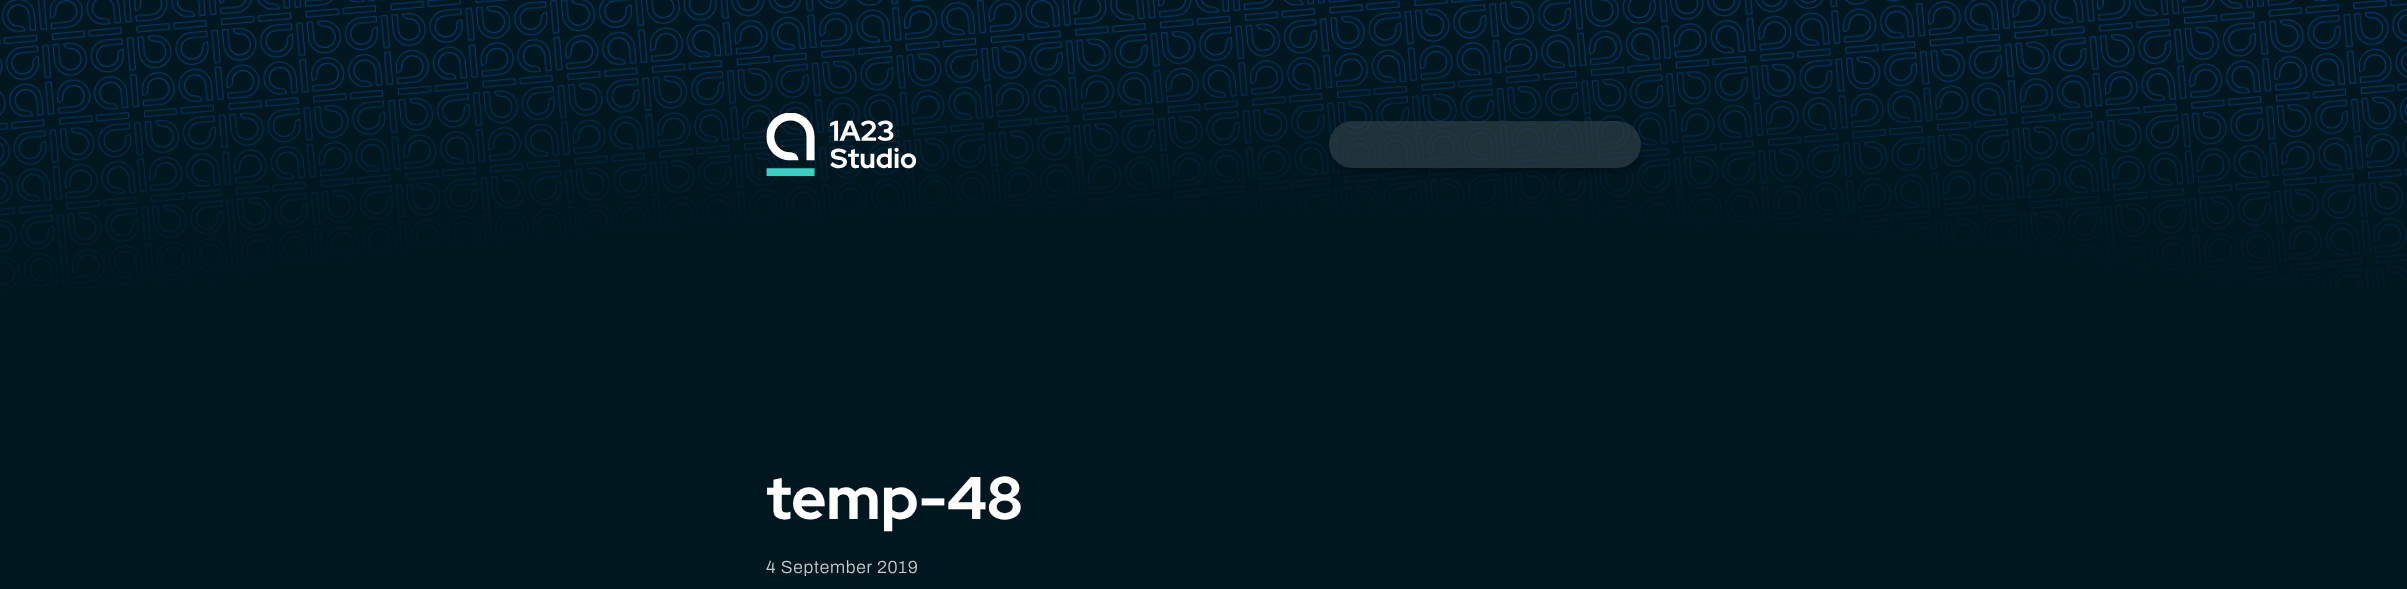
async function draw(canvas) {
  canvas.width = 2407;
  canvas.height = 589;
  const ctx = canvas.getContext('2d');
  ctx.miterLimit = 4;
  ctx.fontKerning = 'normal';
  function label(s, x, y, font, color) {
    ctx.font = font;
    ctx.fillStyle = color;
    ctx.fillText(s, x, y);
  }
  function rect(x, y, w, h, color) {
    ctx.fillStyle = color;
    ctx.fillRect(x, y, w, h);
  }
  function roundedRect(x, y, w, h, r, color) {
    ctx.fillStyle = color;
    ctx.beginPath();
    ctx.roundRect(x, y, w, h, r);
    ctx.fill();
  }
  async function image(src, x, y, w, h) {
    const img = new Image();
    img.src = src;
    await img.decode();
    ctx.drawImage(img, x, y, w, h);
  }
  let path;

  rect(0, 0, 2407, 589, '#00171f');
  await image('assets/img1.png', 0, 0, 2407, 289);
  await image('assets/img2.png', 766, 113, 150, 63);
  ctx.save();
  path = new Path2D('M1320 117H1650V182H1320ZM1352.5 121H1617.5C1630.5 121 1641 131.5 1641 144.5C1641 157.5 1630.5 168 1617.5 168H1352.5C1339.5 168 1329 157.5 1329 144.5C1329 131.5 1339.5 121 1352.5 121Z');
  ctx.clip(path, 'evenodd');
  ctx.fillStyle = '#00000040';
  ctx.filter = 'blur(2.5px)';
  ctx.beginPath();
  ctx.roundRect(1329, 126, 312, 47, 23.5);
  ctx.fill();
  ctx.filter = 'none';
  ctx.restore();
  roundedRect(1329, 121, 312, 47, 23.5, '#33454c99');
  label('temp-48', 766, 519, '800 60px Red Hat Display', '#fff');
  ctx.letterSpacing = '0.75px';
  label('4 September 2019', 766, 573, '300 17.5px Archivo', '#ccc');
}

draw(document.querySelector('canvas'));
